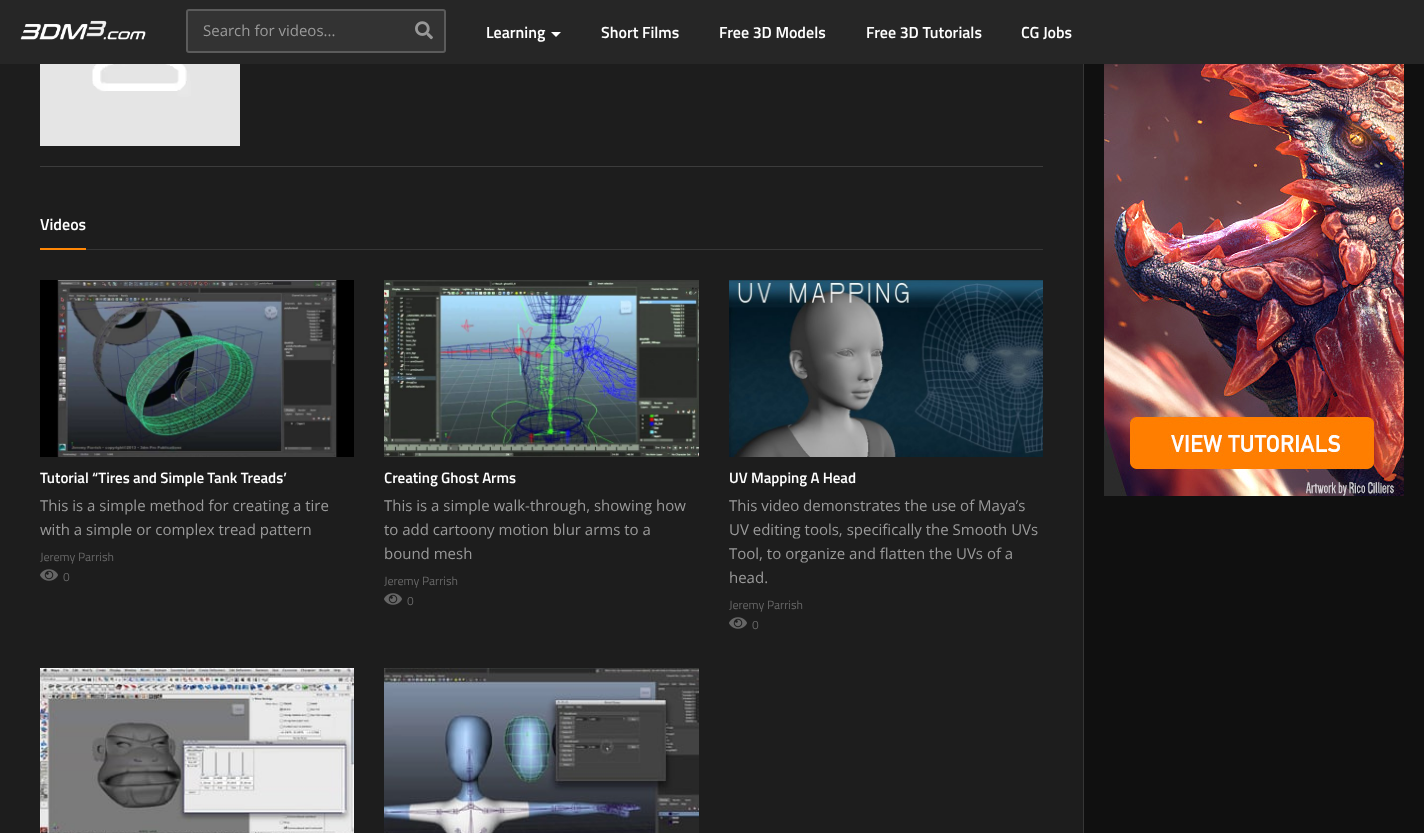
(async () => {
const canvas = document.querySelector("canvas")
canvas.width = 1424
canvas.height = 833
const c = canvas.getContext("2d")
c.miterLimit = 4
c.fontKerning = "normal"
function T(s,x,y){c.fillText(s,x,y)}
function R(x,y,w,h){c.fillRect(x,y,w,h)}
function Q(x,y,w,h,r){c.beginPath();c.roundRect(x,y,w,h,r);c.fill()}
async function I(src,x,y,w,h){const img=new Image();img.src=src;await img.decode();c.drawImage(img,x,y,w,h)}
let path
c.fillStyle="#101010"
R(0,0,1424,833)
c.fillStyle="#262626"
R(0,0,1424,64)
await I("1.png",20,20,126,20)
c.fillStyle="#333"
Q(186,9,260,44,3)
c.beginPath()
c.roundRect(187,10,258,42,2)
c.strokeStyle="#ffffff33"
c.lineWidth=2
c.stroke()
c.font="15px Open Sans"
c.fillStyle="#9a9a9a"
T("Search for videos...",203,36)
await I("2.png",415,21,18,19)
c.font="600 16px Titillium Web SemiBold"
c.fillStyle="#fff"
T("Learning",486,38)
path = new Path2D("M551 32h10l-5 5z")
c.fill(path)
T("Short Films",601,38)
T("Free 3D Models",719,38)
T("Free 3D Tutorials",866,38)
T("CG Jobs",1021,38)
c.fillStyle="#1d1d1d"
R(0,64,1083,769)
c.fillStyle="#363636"
R(1083,64,1,769)
await I("3.png",40,64,200,82)
c.fillStyle="#3c3c3c"
R(40,166,1003,1)
c.fillStyle="#363636"
R(86,249,957,1)
c.fillStyle="#fff"
T("Videos",40,230)
c.fillStyle="#ff8706"
R(40,248,46,2)
await I("4.png",40,280,314,177)
c.font="600 15px Titillium Web SemiBold"
c.fillStyle="#fff"
T("Tutorial “Tires and Simple Tank Treads’",40,483)
c.font="15px Open Sans"
c.fillStyle="#9a9a9a"
T("This is a simple method for creating a tire",40,511)
T("with a simple or complex tread pattern",40,535)
c.font="12px Titillium Web"
c.fillStyle="#666"
T("Jeremy Parrish",40,561)
await I("5.png",40,569,18,12)
T("0",63,581)
await I("6.png",384,280,315,177)
c.font="600 15px Titillium Web SemiBold"
c.fillStyle="#fff"
T("Creating Ghost Arms",384,483)
c.font="15px Open Sans"
c.fillStyle="#9a9a9a"
T("This is a simple walk-through, showing how",384,511)
T("to add cartoony motion blur arms to a",384,535)
T("bound mesh",384,559)
c.font="12px Titillium Web"
c.fillStyle="#666"
T("Jeremy Parrish",384,585)
await I("5.png",384,593,18,12)
T("0",407,605)
await I("7.png",729,280,314,177)
c.font="600 15px Titillium Web SemiBold"
c.fillStyle="#fff"
T("UV Mapping A Head",729,483)
c.font="15px Open Sans"
c.fillStyle="#9a9a9a"
T("This video demonstrates the use of Maya’s",729,511)
T("UV editing tools, specifically the Smooth UVs",729,535)
T("Tool, to organize and flatten the UVs of a",729,559)
T("head.",729,583)
c.font="12px Titillium Web"
c.fillStyle="#666"
T("Jeremy Parrish",729,609)
await I("5.png",729,617,18,12)
T("0",752,629)
await I("8.png",40,668,314,165)
await I("9.png",384,668,315,165)
await I("10.png",1104,64,300,432)
})()
